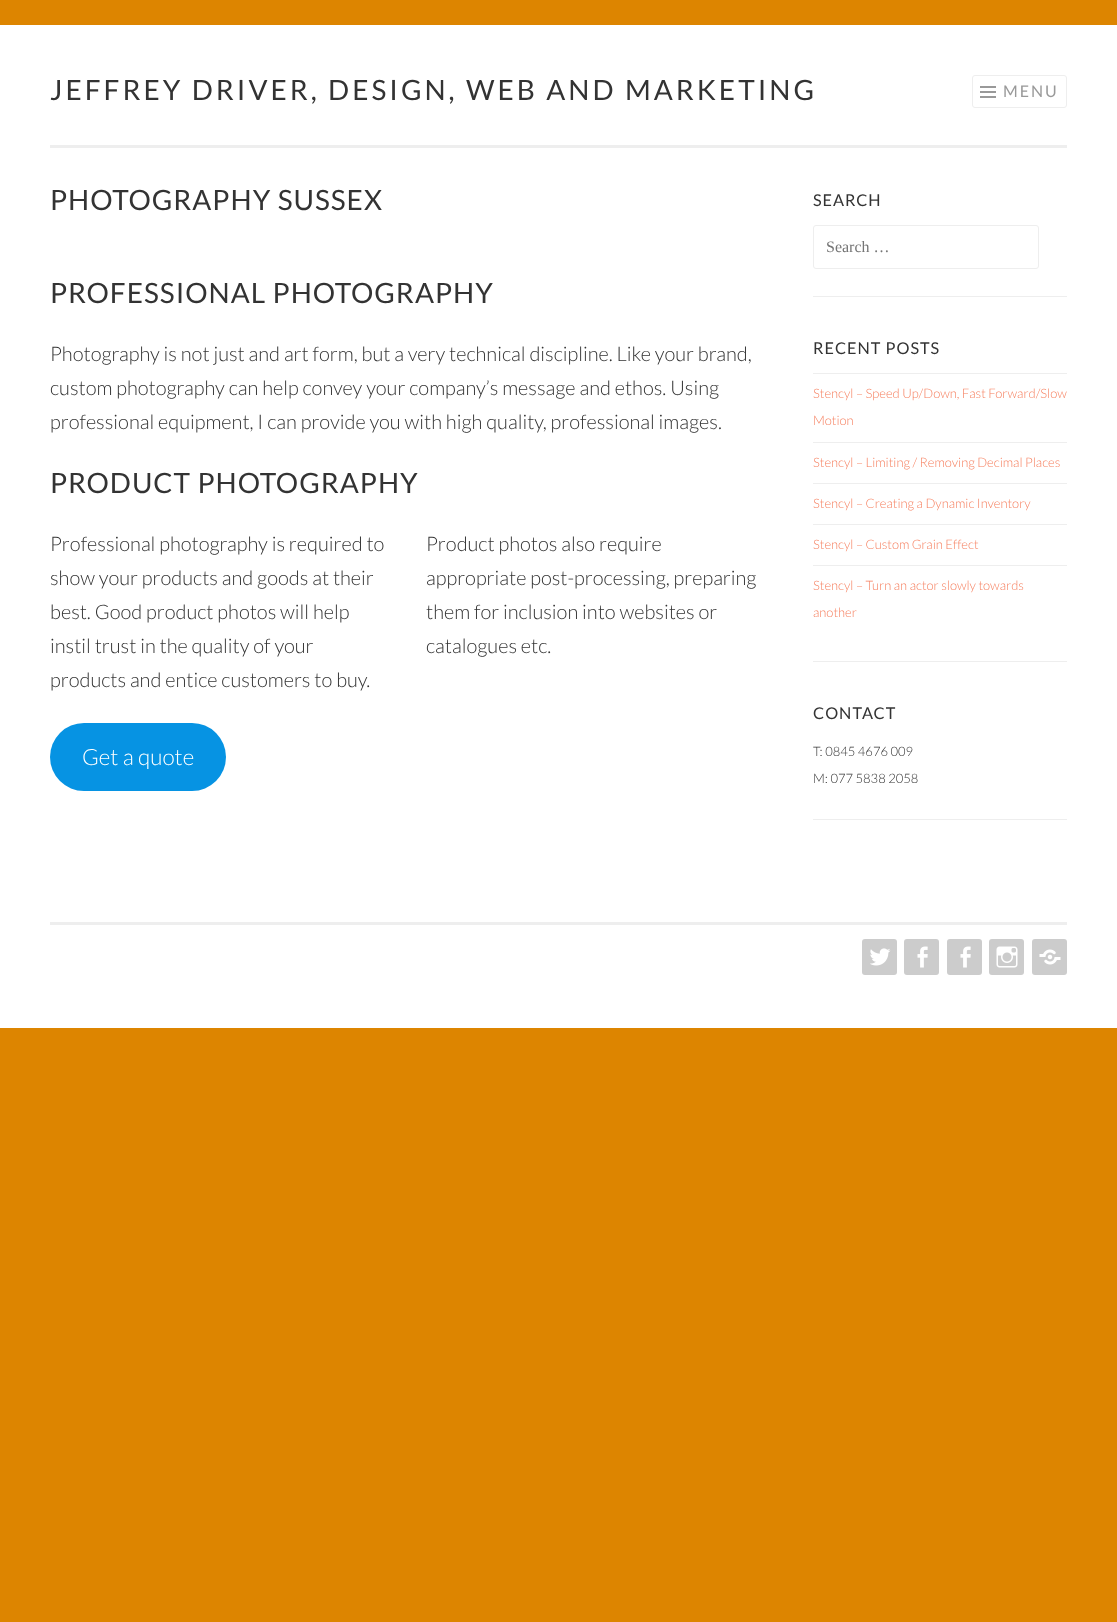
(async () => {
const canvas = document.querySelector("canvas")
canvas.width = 1117
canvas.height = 1622
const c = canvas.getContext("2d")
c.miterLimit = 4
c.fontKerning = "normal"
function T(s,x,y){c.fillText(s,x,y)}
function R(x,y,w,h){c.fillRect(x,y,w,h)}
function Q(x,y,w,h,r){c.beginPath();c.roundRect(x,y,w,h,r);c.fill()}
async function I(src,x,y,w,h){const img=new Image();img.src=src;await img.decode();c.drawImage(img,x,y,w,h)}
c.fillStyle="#dd8500"
R(0,0,1117,1622)
c.fillStyle="#fff"
R(0,25,1117,1003)
c.fillStyle="#eee"
R(50,145,1017,3)
c.letterSpacing="3px"
c.font="28px Lato"
c.fillStyle="#333"
T("JEFFREY DRIVER, DESIGN, WEB AND MARKETING",50,100)
c.beginPath()
c.roundRect(972.5,75.5,94,32,2.5)
c.strokeStyle="#eee"
c.stroke()
await I("1.png",980,86,16,12)
c.letterSpacing="2px"
c.font="16px Lato"
c.fillStyle="#999"
T("MENU",1003,97)
c.letterSpacing="1px"
c.font="28px Lato"
c.fillStyle="#333"
T("PHOTOGRAPHY SUSSEX",50,210)
T("PROFESSIONAL PHOTOGRAPHY",50,303)
c.letterSpacing="0px"
c.font="300 20px Lato"
T("Photography is not just and art form, but a very technical discipline. Like your brand,",50,361)
T("custom photography can help convey your company’s message and ethos. Using",50,395)
T("professional equipment, I can provide you with high quality, professional images.",50,429)
c.letterSpacing="1px"
c.font="28px Lato"
T("PRODUCT PHOTOGRAPHY",50,493)
c.letterSpacing="0px"
c.font="300 20px Lato"
T("Professional photography is required to",50,551)
T("show your products and goods at their",50,585)
T("best. Good product photos will help",50,619)
T("instil trust in the quality of your",50,653)
T("products and entice customers to buy.",50,687)
T("Product photos also require",426,551)
T("appropriate post-processing, preparing",426,585)
T("them for inclusion into websites or",426,619)
T("catalogues etc.",426,653)
c.fillStyle="#0693e3"
Q(50,723,176,68,34)
c.font="300 22.5px Lato"
c.fillStyle="#fff"
T("Get a quote",82,765)
c.fillStyle="#eee"
R(813,296,254,1)
c.letterSpacing="1px"
c.font="16.25px Lato"
c.fillStyle="#333"
T("SEARCH",813,206)
c.beginPath()
c.roundRect(813.5,225.5,225,43,2.5)
c.stroke()
c.letterSpacing="0px"
c.font="16px Liberation Serif"
c.fillStyle="#757575"
T("Search …",826,252)
c.fillStyle="#eee"
R(813,661,254,1)
c.letterSpacing="1px"
c.font="16.25px Lato"
c.fillStyle="#333"
T("RECENT POSTS",813,354)
c.fillStyle="#eee"
R(813,373,254,1)
c.letterSpacing="0px"
c.font="300 13px Lato"
c.fillStyle="#f68060"
T("Stencyl – Speed Up/Down, Fast Forward/Slow",813,398)
T("Motion",813,425)
c.fillStyle="#eee"
R(813,442,254,1)
c.fillStyle="#f68060"
T("Stencyl – Limiting / Removing Decimal Places",813,467)
c.fillStyle="#eee"
R(813,483,254,1)
c.fillStyle="#f68060"
T("Stencyl – Creating a Dynamic Inventory",813,508)
c.fillStyle="#eee"
R(813,524,254,1)
c.fillStyle="#f68060"
T("Stencyl – Custom Grain Effect",813,549)
c.fillStyle="#eee"
R(813,565,254,1)
c.fillStyle="#f68060"
T("Stencyl – Turn an actor slowly towards",813,590)
T("another",813,617)
c.fillStyle="#eee"
R(813,819,254,1)
c.letterSpacing="1px"
c.font="16.25px Lato"
c.fillStyle="#333"
T("CONTACT",813,719)
c.letterSpacing="0px"
c.font="300 13px Lato"
T("T: 0845 4676 009",813,756)
T("M: 077 5838 2058",813,783)
c.fillStyle="#eee"
R(50,922,1017,3)
c.fillStyle="#ccc"
Q(862,939,35,36,3)
await I("2.png",870,948,21,18)
Q(904,939,35,36,3)
await I("3.png",917,946,11,22)
Q(947,939,35,36,3)
await I("3.png",960,946,11,22)
Q(989,939,35,36,3)
await I("4.png",996,946,22,22)
Q(1032,939,35,36,3)
await I("5.png",1039,949,22,16)
})()
